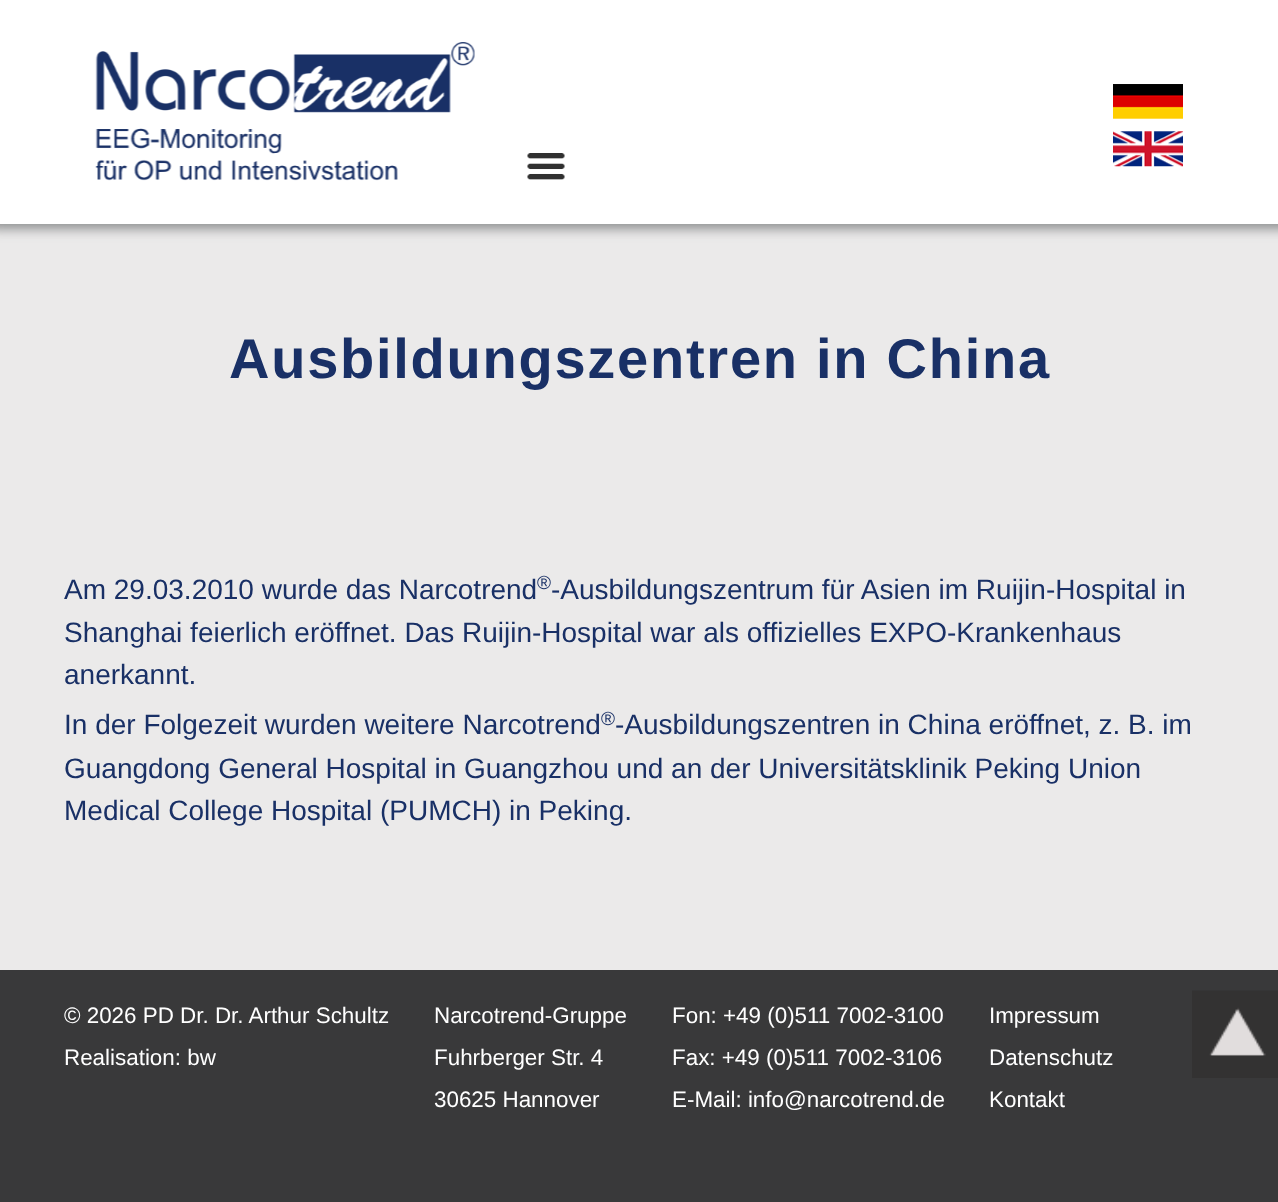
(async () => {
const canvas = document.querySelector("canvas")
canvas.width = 1278
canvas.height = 1202
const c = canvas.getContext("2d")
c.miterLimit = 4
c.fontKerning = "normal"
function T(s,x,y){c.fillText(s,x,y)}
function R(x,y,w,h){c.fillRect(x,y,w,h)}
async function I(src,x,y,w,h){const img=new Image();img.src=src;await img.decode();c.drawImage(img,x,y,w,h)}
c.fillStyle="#ebeaea"
R(0,0,1278,1202)
c.fillStyle="#797b7dcf"
c.filter="blur(6px)"
c.beginPath()
c.rect(-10,-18,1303,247)
c.fill()
c.filter="none"
c.fillStyle="#fff"
R(0,0,1278,224)
await I("1.png",95,42,380,139)
await I("2.png",527,153,38,27)
await I("3.png",1113,84,70,35)
await I("4.png",1113,131,70,36)
c.letterSpacing="1.75px"
c.font="bold 56px Liberation Sans"
c.fillStyle="#193066"
T("Ausbildungszentren in China",229,378)
c.letterSpacing="0px"
c.font="28px Liberation Sans"
T("Am 29.03.2010 wurde das Narcotrend",64,599)
c.font="19px Liberation Sans"
T("®",537,589)
c.font="28px Liberation Sans"
T("-Ausbildungszentrum für Asien im Ruijin-Hospital in",551,599)
T("Shanghai feierlich eröffnet. Das Ruijin-Hospital war als offizielles EXPO-Krankenhaus",64,642)
T("anerkannt.",64,684)
T("In der Folgezeit wurden weitere Narcotrend",64,734)
c.font="19px Liberation Sans"
T("®",601,725)
c.font="28px Liberation Sans"
T("-Ausbildungszentren in China eröffnet, z. B. im",615,734)
T("Guangdong General Hospital in Guangzhou und an der Universitätsklinik Peking Union",64,778)
T("Medical College Hospital (PUMCH) in Peking.",64,820)
c.fillStyle="#39393a"
R(0,970,1278,232)
c.font="22.4px Liberation Sans"
c.fillStyle="#fff"
T("© 2026 PD Dr. Dr. Arthur Schultz",64,1023)
T("Realisation: bw",64,1065)
T("Narcotrend-Gruppe",434,1023)
T("Fuhrberger Str. 4",434,1065)
T("30625 Hannover",434,1107)
T("Fon: +49 (0)511 7002-3100",672,1023)
T("Fax: +49 (0)511 7002-3106",672,1065)
T("E-Mail: info@narcotrend.de",672,1107)
T("Impressum",989,1023)
T("Datenschutz",989,1065)
T("Kontakt",989,1107)
await I("5.png",1192,990,86,88)
})()
